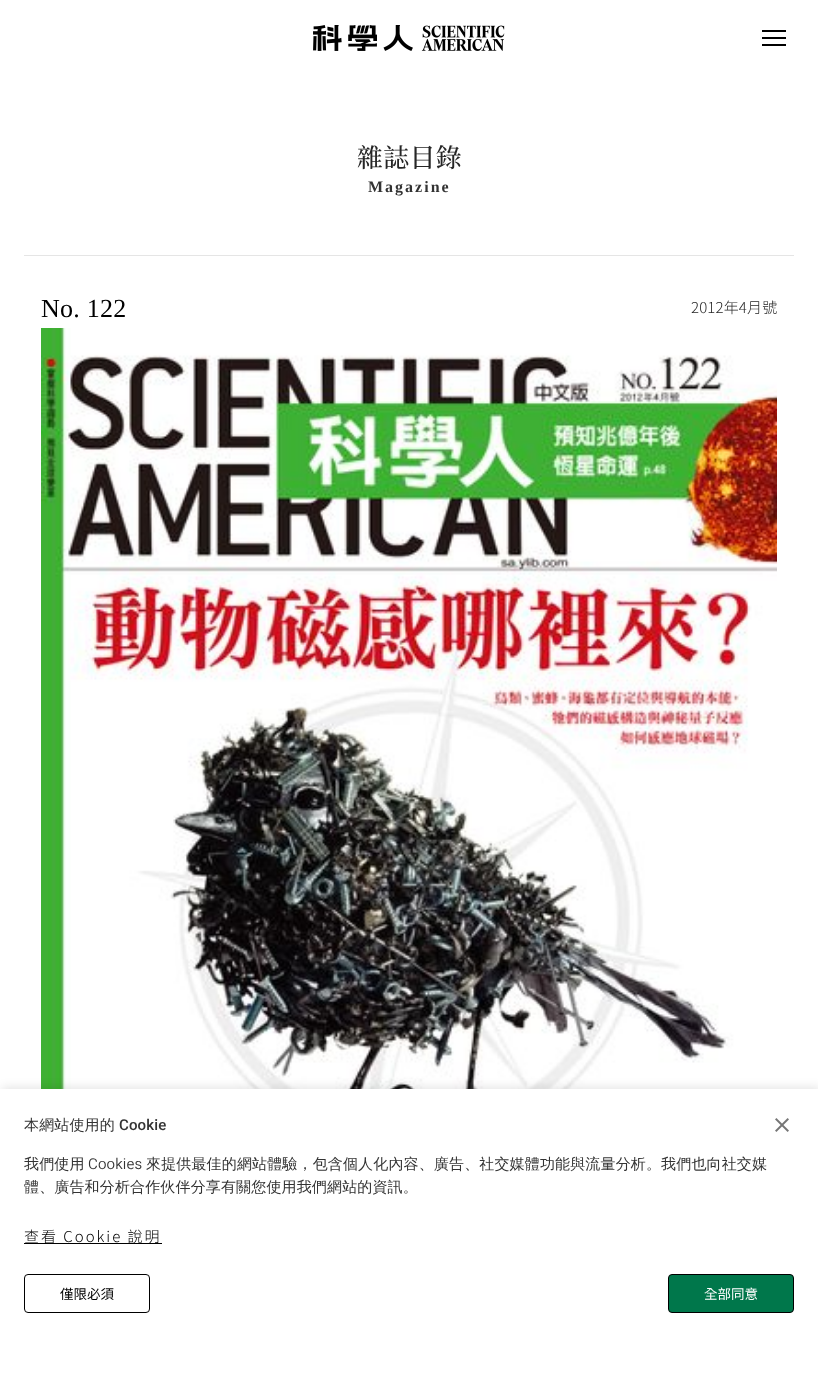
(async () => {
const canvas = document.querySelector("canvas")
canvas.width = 818
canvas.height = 1381
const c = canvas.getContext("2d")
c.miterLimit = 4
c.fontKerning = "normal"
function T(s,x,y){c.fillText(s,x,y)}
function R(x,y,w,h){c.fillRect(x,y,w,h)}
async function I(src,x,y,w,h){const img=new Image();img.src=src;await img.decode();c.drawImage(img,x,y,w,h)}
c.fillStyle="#fff"
R(0,0,818,1381)
await I("1.png",313,25,192,26)
await I("2.png",762,30,24,16)
c.fillStyle="#e5e5e5"
R(24,255,770,1)
c.letterSpacing="0.25px"
c.font="500 26px Noto Serif TC"
c.fillStyle="#262626"
T("雜誌目錄",357,167)
c.letterSpacing="2px"
c.font="bold 16px Liberation Serif"
c.fillStyle="#333"
T("Magazine",368,192)
c.letterSpacing="0.25px"
c.font="26px Liberation Serif"
c.fillStyle="#000"
T("No. 122",41,317)
c.letterSpacing="0.15px"
c.font="300 15px Noto Sans TC"
c.fillStyle="#262626"
T("2012年4月號",691,313)
await I("3.png",41,328,736,761)
c.fillStyle="#0000001a"
c.filter="blur(5px)"
c.beginPath()
c.rect(2,1087,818,292)
c.fill()
c.filter="none"
c.fillStyle="#fff"
R(0,1089,818,292)
c.font="500 15px WenQuanYi Zen Hei"
c.fillStyle="#333"
T("本網站使用的",24,1130)
c.font="500 15px Roboto"
T("Cookie",119,1130)
await I("4.png",775,1118,14,14)
c.font="500 15px WenQuanYi Zen Hei"
T("我們使用",24,1169)
c.font="300 15px Roboto"
T("Cookies",88,1169)
c.font="500 15px WenQuanYi Zen Hei"
T("來提供最佳的網站體驗，包含個人化內容、廣告、社交媒體功能與流量分析。我們也向社交媒",146,1169)
T("體、廣告和分析合作伙伴分享有關您使用我們網站的資訊。",24,1192)
c.fillStyle="#000"
R(24,1243,138,1)
c.letterSpacing="2px"
c.font="300 15px Noto Sans TC"
T("查看 Cookie 說明",24,1242)
c.beginPath()
c.roundRect(24.5,1274.5,125,38,3.5)
c.strokeStyle="#000"
c.stroke()
c.letterSpacing="0px"
c.font="13.5px Noto Sans TC"
T("僅限必須",60,1299)
c.fillStyle="#00774b"
c.beginPath()
c.roundRect(668.5,1274.5,125,38,3.5)
c.fill()
c.stroke()
c.fillStyle="#fff"
T("全部同意",704,1299)
})()
